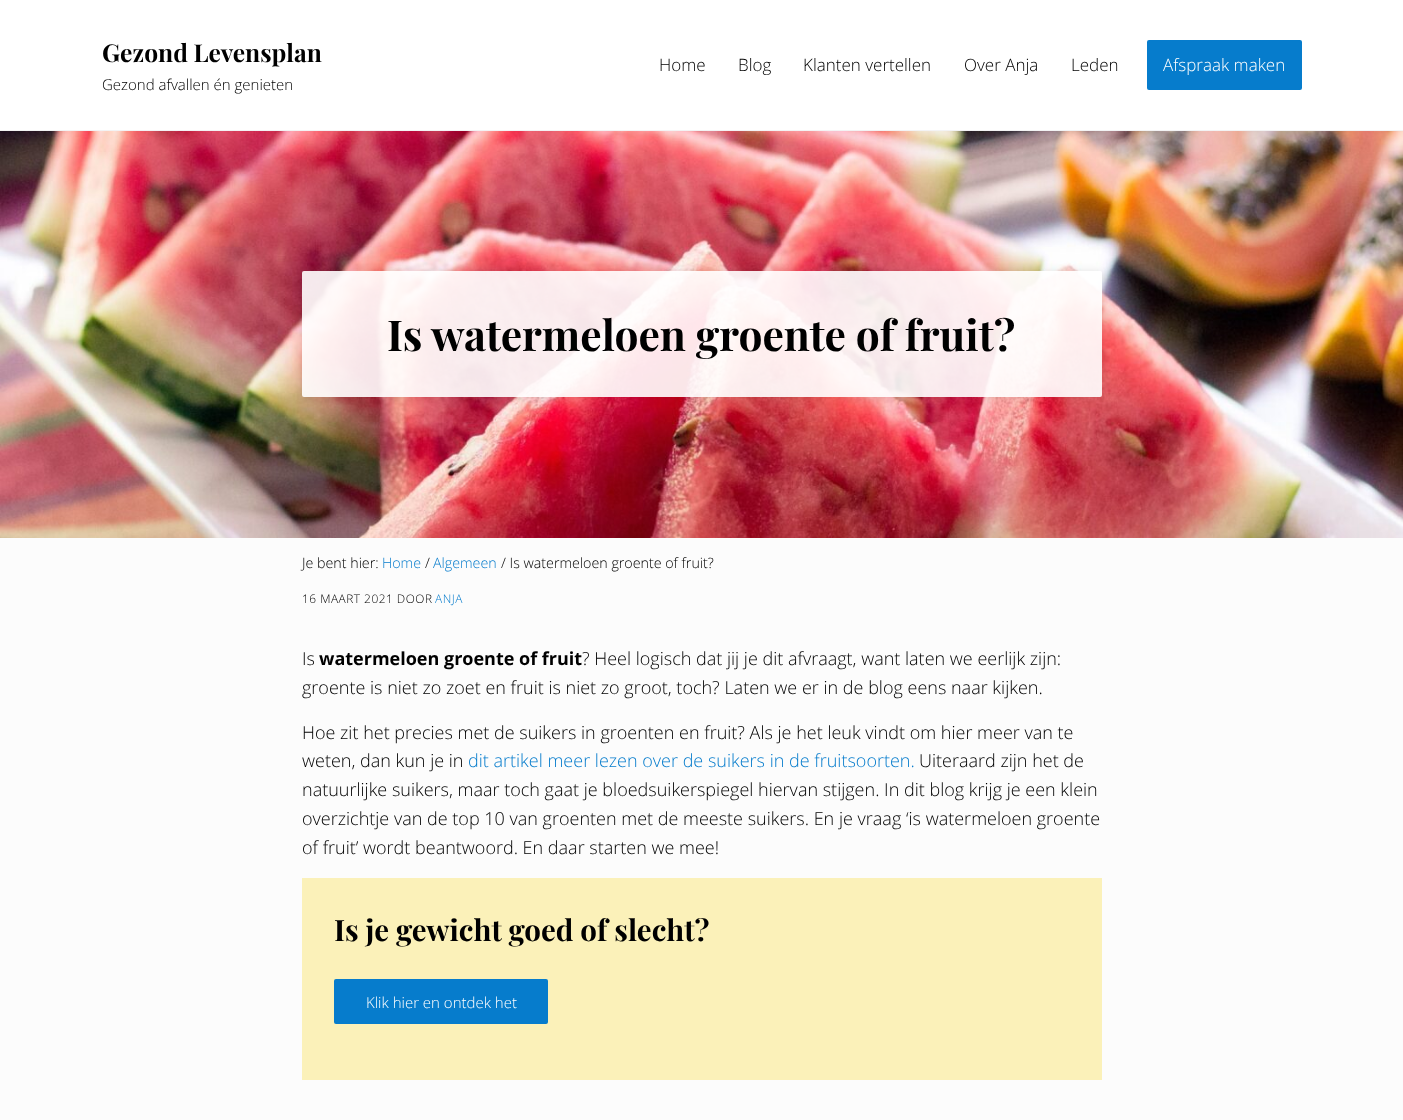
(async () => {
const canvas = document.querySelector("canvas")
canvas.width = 1403
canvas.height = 1120
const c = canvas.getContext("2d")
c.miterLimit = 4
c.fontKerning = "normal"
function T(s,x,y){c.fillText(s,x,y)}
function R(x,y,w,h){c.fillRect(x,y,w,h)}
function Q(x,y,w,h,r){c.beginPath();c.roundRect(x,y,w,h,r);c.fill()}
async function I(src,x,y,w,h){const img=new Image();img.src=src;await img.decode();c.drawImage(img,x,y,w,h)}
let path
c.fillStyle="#fcfcfc"
R(0,0,1403,1120)
c.fillStyle="#fff"
R(0,0,1403,130)
c.fillStyle="#f3f3f4"
R(0,130,1403,1)
c.font="bold 24.6px Playfair Display"
c.fillStyle="#000"
T("Gezond Levensplan",102,62)
c.font="300 15px Open Sans"
T("Gezond afvallen én genieten",102,90)
c.font="300 17px Open Sans"
T("Home",659,71)
T("Blog",738,71)
T("Klanten vertellen",803,71)
T("Over Anja",964,71)
T("Leden",1071,71)
c.fillStyle="#067ccc"
Q(1147,40,155,50,2)
c.fillStyle="#fff"
T("Afspraak maken",1163,71)
await I("1.png",0,131,1403,407)
c.save()
path = new Path2D("M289 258h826v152h-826zm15 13h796c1 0 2 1 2 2v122c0 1-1 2-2 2h-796c-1 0-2-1-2-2v-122c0-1 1-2 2-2z")
c.clip(path,"evenodd")
c.fillStyle="#0000001a"
c.filter="blur(4px)"
c.beginPath()
c.roundRect(302,271,800,126,2)
c.fill()
c.filter="none"
c.restore()
c.fillStyle="#ffffffe6"
Q(302,271,800,126,2)
c.font="bold 42.5px Playfair Display"
c.fillStyle="#000"
T("Is watermeloen groente of fruit?",387,351)
c.font="300 14.25px Open Sans"
T("Je bent hier:",302,568)
c.fillStyle="#067ccc"
T("Home",382,568)
c.fillStyle="#000"
T("/",425,568)
c.fillStyle="#067ccc"
T("Algemeen",433,568)
c.fillStyle="#000"
T("/ Is watermeloen groente of fruit?",501,568)
c.letterSpacing="0.5px"
c.font="300 11.9px Open Sans"
T("16 MAART 2021 DOOR",302,603)
c.fillStyle="#067ccc"
T("ANJA",435,603)
c.letterSpacing="0px"
c.font="300 18px Open Sans"
c.fillStyle="#000"
T("Is",302,665)
c.font="bold 18px Open Sans"
T("watermeloen groente of fruit",319,665)
c.font="300 18px Open Sans"
T("? Heel logisch dat jij je dit afvraagt, want laten we eerlijk zijn:",582,665)
T("groente is niet zo zoet en fruit is niet zo groot, toch? Laten we er in de blog eens naar kijken.",302,694)
T("Hoe zit het precies met de suikers in groenten en fruit? Als je het leuk vindt om hier meer van te",302,739)
T("weten, dan kun je in",302,767)
c.fillStyle="#067ccc"
T("dit artikel meer lezen over de suikers in de fruitsoorten.",468,767)
c.fillStyle="#000"
T("Uiteraard zijn het de",919,767)
T("natuurlijke suikers, maar toch gaat je bloedsuikerspiegel hiervan stijgen. In dit blog krijg je een klein",302,796)
T("overzichtje van de top 10 van groenten met de meeste suikers. En je vraag ‘is watermeloen groente",302,825)
T("of fruit’ wordt beantwoord. En daar starten we mee!",302,854)
c.fillStyle="#fbf1b9"
R(302,878,800,202)
c.font="bold 29.5px Playfair Display"
c.fillStyle="#000"
T("Is je gewicht goed of slecht?",334,941)
c.fillStyle="#067ccc"
Q(334,979,214,45,2)
c.font="300 15px Open Sans"
c.fillStyle="#fff"
T("Klik hier en ontdek het",366,1008)
})()
